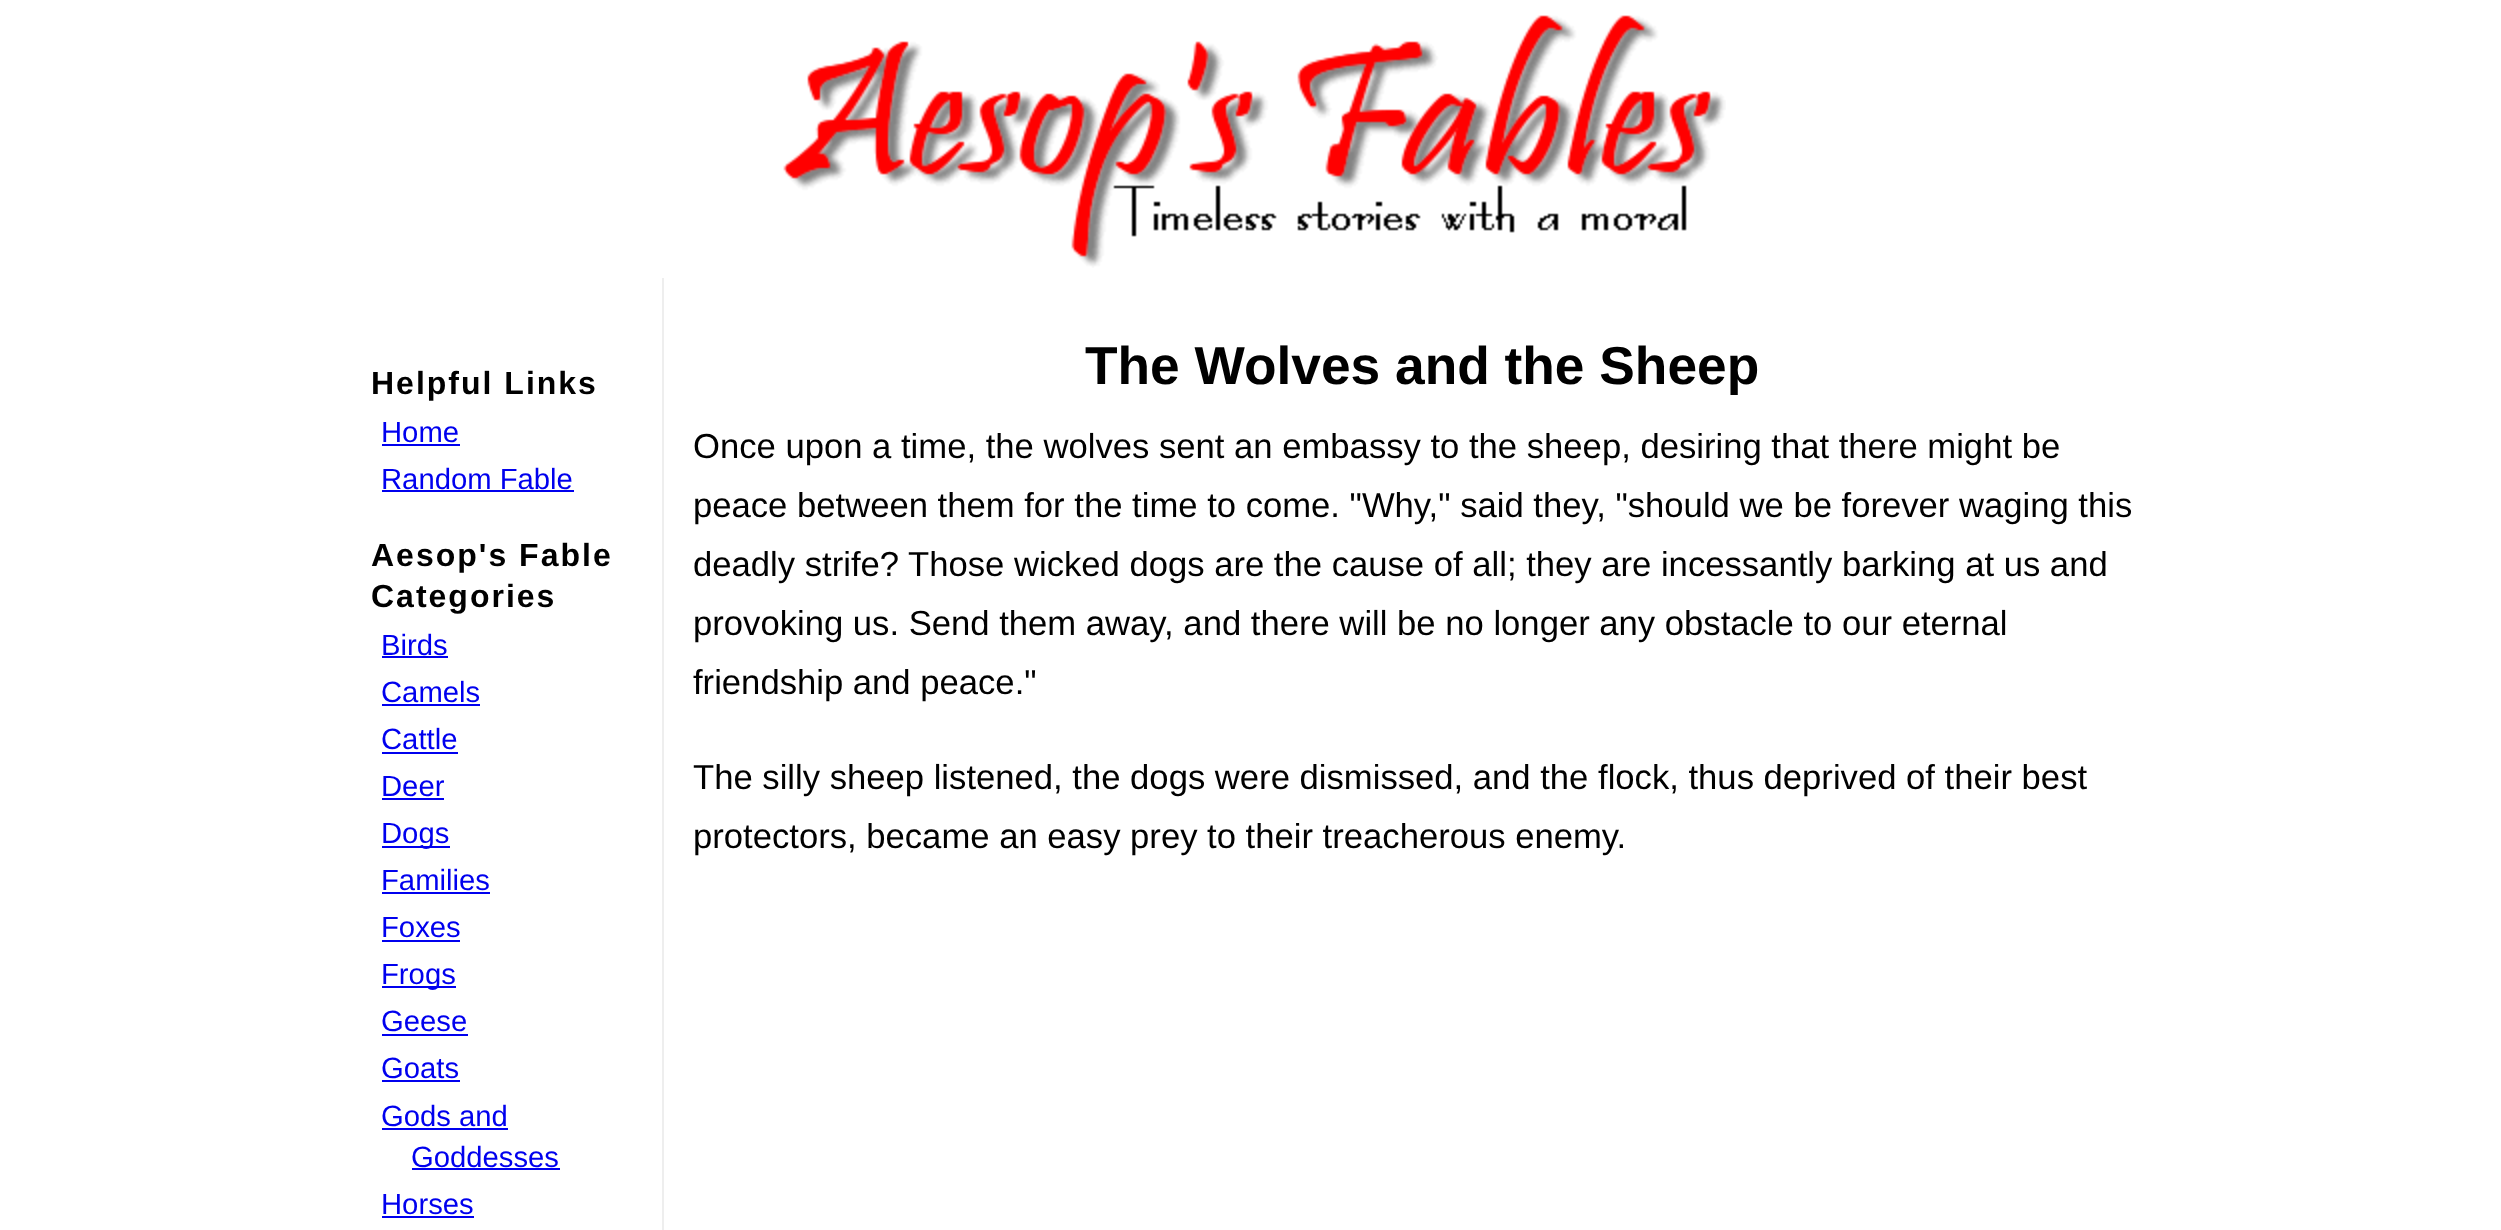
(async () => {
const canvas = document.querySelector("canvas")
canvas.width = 2501
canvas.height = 1230
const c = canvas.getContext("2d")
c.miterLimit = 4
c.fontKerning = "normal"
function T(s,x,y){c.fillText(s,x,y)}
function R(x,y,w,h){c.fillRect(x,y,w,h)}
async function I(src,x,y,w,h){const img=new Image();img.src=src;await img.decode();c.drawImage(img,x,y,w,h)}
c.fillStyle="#fff"
R(0,0,2501,1230)
await I("1.png",783,15,943,253)
c.fillStyle="#eee"
R(662,278,2,952)
c.letterSpacing="2px"
c.font="bold 32px Liberation Sans"
c.fillStyle="#000"
T("Helpful Links",371,394)
c.letterSpacing="0px"
c.font="29.25px Liberation Sans"
c.fillStyle="#00e"
T("Home",381,442)
R(382,444,78,2)
T("Random Fable",381,489)
R(382,490,192,2)
c.letterSpacing="2px"
c.font="bold 32px Liberation Sans"
c.fillStyle="#000"
T("Aesop's Fable",371,566)
T("Categories",371,607)
c.letterSpacing="0px"
c.font="29.25px Liberation Sans"
c.fillStyle="#00e"
T("Birds",381,655)
R(382,656,66,2)
T("Camels",381,702)
R(382,704,98,2)
T("Cattle",381,749)
R(382,752,76,2)
T("Deer",381,796)
R(382,798,62,2)
R(382,846,68,2)
T("Dogs",381,843)
T("Families",381,890)
R(382,892,108,2)
T("Foxes",381,937)
R(382,940,78,2)
R(382,986,74,2)
T("Frogs",381,984)
T("Geese",381,1031)
R(382,1034,86,2)
T("Goats",381,1078)
R(382,1080,78,2)
T("Gods and",381,1126)
R(382,1128,126,2)
T("Goddesses",411,1167)
R(412,1168,148,2)
T("Horses",381,1214)
R(382,1216,92,2)
c.font="bold 53.3px Liberation Sans"
c.fillStyle="#000"
T("The Wolves and the Sheep",1085,384)
c.font="34.65px Liberation Sans"
T("Once upon a time, the wolves sent an embassy to the sheep, desiring that there might be",693,458)
T("peace between them for the time to come. \"Why,\" said they, \"should we be forever waging this",693,517)
T("deadly strife? Those wicked dogs are the cause of all; they are incessantly barking at us and",693,576)
T("provoking us. Send them away, and there will be no longer any obstacle to our eternal",693,635)
T("friendship and peace.\"",693,694)
T("The silly sheep listened, the dogs were dismissed, and the flock, thus deprived of their best",693,789)
T("protectors, became an easy prey to their treacherous enemy.",693,848)
})()
